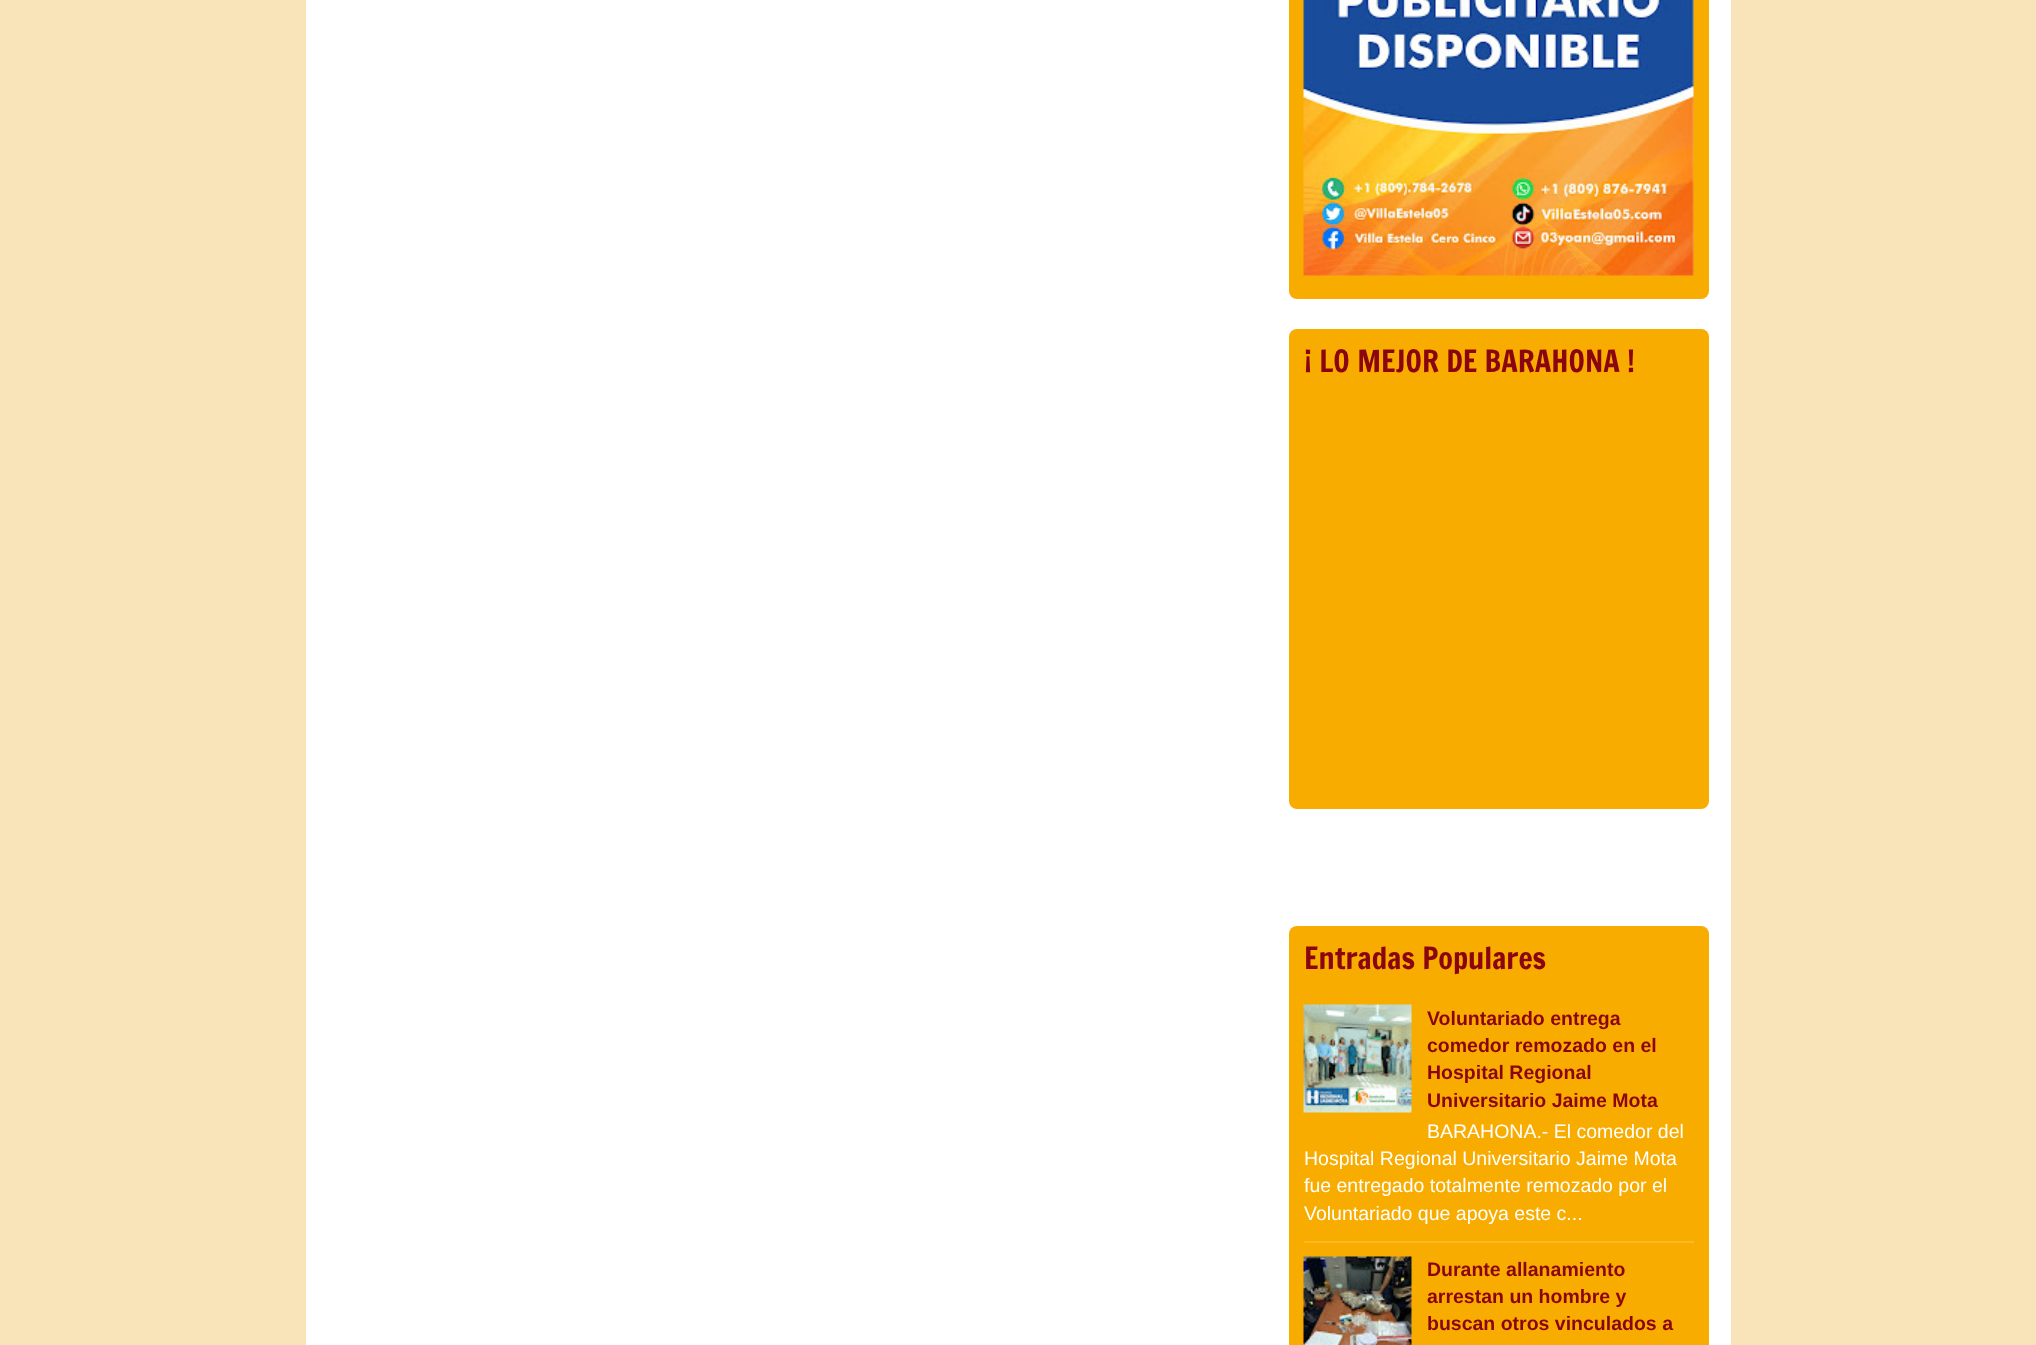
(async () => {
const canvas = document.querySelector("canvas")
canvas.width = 2036
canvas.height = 1345
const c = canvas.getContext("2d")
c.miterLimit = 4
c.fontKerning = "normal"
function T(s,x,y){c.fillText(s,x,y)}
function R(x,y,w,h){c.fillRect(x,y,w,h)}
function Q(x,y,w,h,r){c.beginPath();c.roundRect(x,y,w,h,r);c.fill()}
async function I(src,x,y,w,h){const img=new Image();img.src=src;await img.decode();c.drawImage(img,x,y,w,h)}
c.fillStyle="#f8e4b8"
R(0,0,2036,1345)
c.fillStyle="#fff"
R(306,0,1425,1345)
c.fillStyle="#f8ac00"
Q(1289,-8,420,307,8)
await I("1.png",1303,0,391,276)
Q(1289,329,420,480,8)
c.font="30px Francois One"
c.fillStyle="#8a050f"
T("¡ LO MEJOR DE BARAHONA !",1304,372)
c.fillStyle="#f8ac00"
Q(1289,926,420,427,8)
c.fillStyle="#8a050f"
T("Entradas Populares",1304,969)
c.fillStyle="#fcba20"
R(1304,1241,390,2)
await I("2.png",1303,1004,109,109)
c.font="bold 19.5px Liberation Sans"
c.fillStyle="#8a050f"
T("Voluntariado entrega",1427,1025)
T("comedor remozado en el",1427,1052)
T("Hospital Regional",1427,1079)
T("Universitario Jaime Mota",1427,1107)
c.font="19.5px Liberation Sans"
c.fillStyle="#fff"
T("BARAHONA.- El comedor del",1427,1138)
T("Hospital Regional Universitario Jaime Mota",1304,1165)
T("fue entregado totalmente remozado por el",1304,1192)
T("Voluntariado que apoya este c...",1304,1220)
await I("3.png",1303,1256,109,89)
c.font="bold 19.5px Liberation Sans"
c.fillStyle="#8a050f"
T("Durante allanamiento",1427,1276)
T("arrestan un hombre y",1427,1303)
T("buscan otros vinculados a",1427,1330)
})()
